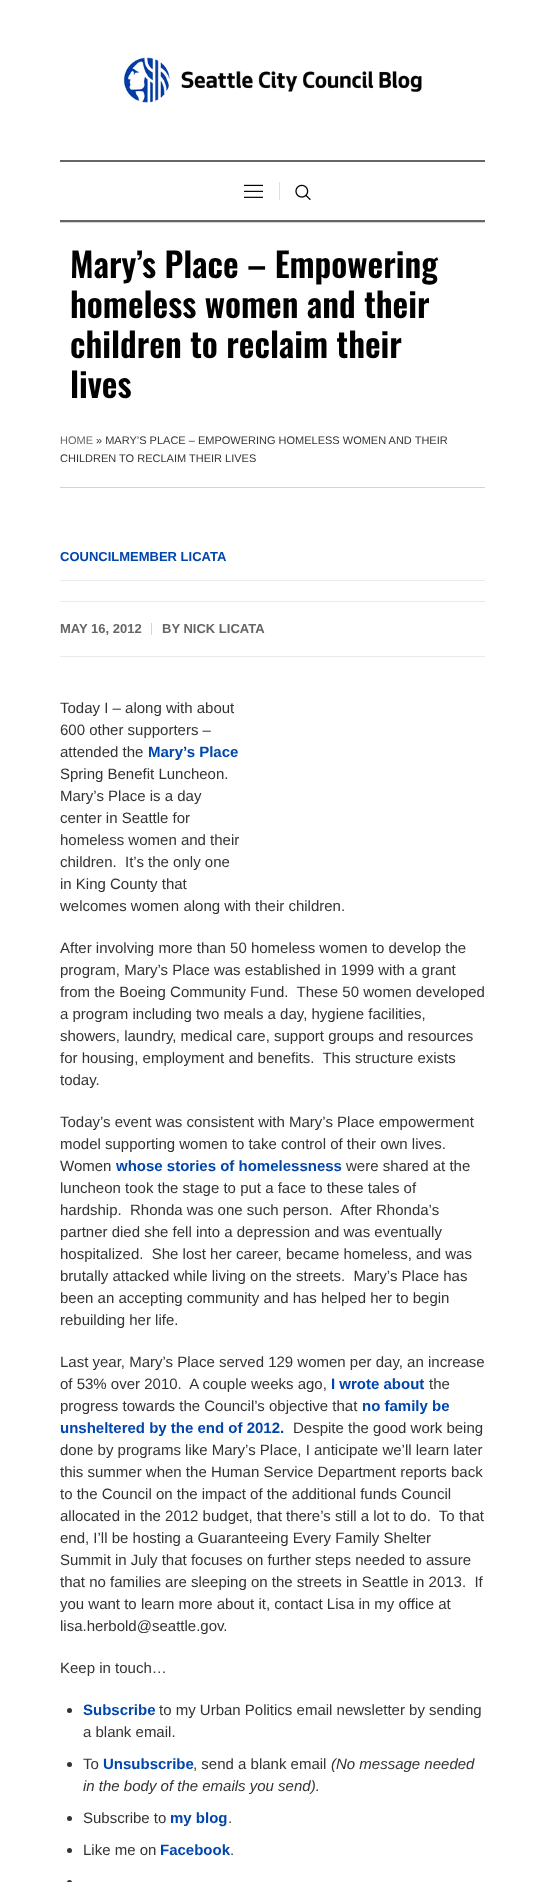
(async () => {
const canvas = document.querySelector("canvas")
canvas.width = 545
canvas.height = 1882
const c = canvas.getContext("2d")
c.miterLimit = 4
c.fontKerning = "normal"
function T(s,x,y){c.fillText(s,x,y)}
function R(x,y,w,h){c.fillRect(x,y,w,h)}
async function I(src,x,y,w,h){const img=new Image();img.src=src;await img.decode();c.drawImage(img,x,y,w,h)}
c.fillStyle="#fff"
R(0,0,545,1882)
await I("1.png",123,57,299,46)
c.fillStyle="#666"
R(60,160,425,2)
R(60,220,425,2)
await I("2.png",244,184,19,14)
c.fillStyle="#dfdfdf"
R(279,182,1,18)
await I("3.png",295,184,16,16)
c.fillStyle="#d4d4d4"
R(60,222,425,1)
R(60,487,425,1)
c.font="600 34px Oswald"
c.fillStyle="#000"
T("Mary’s Place – Empowering",70,278)
T("homeless women and their",70,318)
T("children to reclaim their",70,358)
T("lives",70,398)
c.font="11px Liberation Sans"
c.fillStyle="#666"
T("HOME",60,444)
c.fillStyle="#333"
T("» MARY’S PLACE – EMPOWERING HOMELESS WOMEN AND THEIR",96,444)
T("CHILDREN TO RECLAIM THEIR LIVES",60,462)
c.fillStyle="#eaeaea"
R(60,580,425,1)
c.font="bold 13px Liberation Sans"
c.fillStyle="#0046ad"
T("COUNCILMEMBER LICATA",60,561)
c.fillStyle="#eaeaea"
R(60,601,425,1)
R(60,656,425,1)
c.fillStyle="#666"
T("MAY 16, 2012",60,633)
c.fillStyle="#d4d4d4"
R(151,623,1,12)
c.fillStyle="#666"
T("BY NICK LICATA",162,633)
c.font="15px Liberation Sans"
c.fillStyle="#333"
T("Today I – along with about",60,713)
T("600 other supporters –",60,735)
T("attended the",60,757)
c.font="bold 15px Liberation Sans"
c.fillStyle="#0046ad"
T("Mary’s Place",148,757)
c.font="15px Liberation Sans"
c.fillStyle="#333"
T("Spring Benefit Luncheon.",60,779)
T("Mary’s Place is a day",60,801)
T("center in Seattle for",60,823)
T("homeless women and their",60,845)
T("children.  It’s the only one",60,867)
T("in King County that",60,889)
T("welcomes women along with their children.",60,911)
T("After involving more than 50 homeless women to develop the",60,953)
T("program, Mary’s Place was established in 1999 with a grant",60,975)
T("from the Boeing Community Fund.  These 50 women developed",60,997)
T("a program including two meals a day, hygiene facilities,",60,1019)
T("showers, laundry, medical care, support groups and resources",60,1041)
T("for housing, employment and benefits.  This structure exists",60,1063)
T("today.",60,1085)
T("Today’s event was consistent with Mary’s Place empowerment",60,1127)
T("model supporting women to take control of their own lives.",60,1149)
T("Women",60,1171)
c.font="bold 15px Liberation Sans"
c.fillStyle="#0046ad"
T("whose stories of homelessness",116,1171)
c.font="15px Liberation Sans"
c.fillStyle="#333"
T("were shared at the",346,1171)
T("luncheon took the stage to put a face to these tales of",60,1193)
T("hardship.  Rhonda was one such person.  After Rhonda’s",60,1215)
T("partner died she fell into a depression and was eventually",60,1237)
T("hospitalized.  She lost her career, became homeless, and was",60,1259)
T("brutally attacked while living on the streets.  Mary’s Place has",60,1281)
T("been an accepting community and has helped her to begin",60,1303)
T("rebuilding her life.",60,1325)
T("Last year, Mary’s Place served 129 women per day, an increase",60,1367)
T("of 53% over 2010.  A couple weeks ago,",60,1389)
c.font="bold 15px Liberation Sans"
c.fillStyle="#0046ad"
T("I wrote about",331,1389)
c.font="15px Liberation Sans"
c.fillStyle="#333"
T("the",429,1389)
T("progress towards the Council’s objective that",60,1411)
c.font="bold 15px Liberation Sans"
c.fillStyle="#0046ad"
T("no family be",362,1411)
T("unsheltered by the end of 2012.",60,1433)
c.font="15px Liberation Sans"
c.fillStyle="#333"
T("Despite the good work being",293,1433)
T("done by programs like Mary’s Place, I anticipate we’ll learn later",60,1455)
T("this summer when the Human Service Department reports back",60,1477)
T("to the Council on the impact of the additional funds Council",60,1499)
T("allocated in the 2012 budget, that there’s still a lot to do.  To that",60,1521)
T("end, I’ll be hosting a Guaranteeing Every Family Shelter",60,1543)
T("Summit in July that focuses on further steps needed to assure",60,1565)
T("that no families are sleeping on the streets in Seattle in 2013.  If",60,1587)
T("you want to learn more about it, contact Lisa in my office at",60,1609)
T("lisa.herbold@seattle.gov.",60,1631)
T("Keep in touch…",60,1673)
c.beginPath()
c.arc(69.5,1710.5,2.5,0,7)
c.fill()
c.font="bold 15px Liberation Sans"
c.fillStyle="#0046ad"
T("Subscribe",83,1715)
c.font="15px Liberation Sans"
c.fillStyle="#333"
T("to my Urban Politics email newsletter by sending",159,1715)
T("a blank email.",83,1737)
c.beginPath()
c.arc(69.5,1764.5,2.5,0,7)
c.fill()
T("To",83,1769)
c.font="bold 15px Liberation Sans"
c.fillStyle="#0046ad"
T("Unsubscribe",103,1769)
c.font="15px Liberation Sans"
c.fillStyle="#333"
T(", send a blank email",193,1769)
c.font="italic 15px Liberation Sans"
T("(No message needed",331,1769)
T("in the body of the emails you send).",83,1791)
c.beginPath()
c.arc(69.5,1818.5,2.5,0,7)
c.fill()
c.font="15px Liberation Sans"
T("Subscribe to",83,1823)
c.font="bold 15px Liberation Sans"
c.fillStyle="#0046ad"
T("my blog",170,1823)
c.font="15px Liberation Sans"
c.fillStyle="#333"
T(".",228,1823)
c.beginPath()
c.arc(69.5,1850.5,2.5,0,7)
c.fill()
T("Like me on",83,1855)
c.font="bold 15px Liberation Sans"
c.fillStyle="#0046ad"
T("Facebook",160,1855)
c.font="15px Liberation Sans"
c.fillStyle="#333"
T(".",230,1855)
c.beginPath()
c.arc(69.5,1882.5,2.5,0,7)
c.fill()
})()
